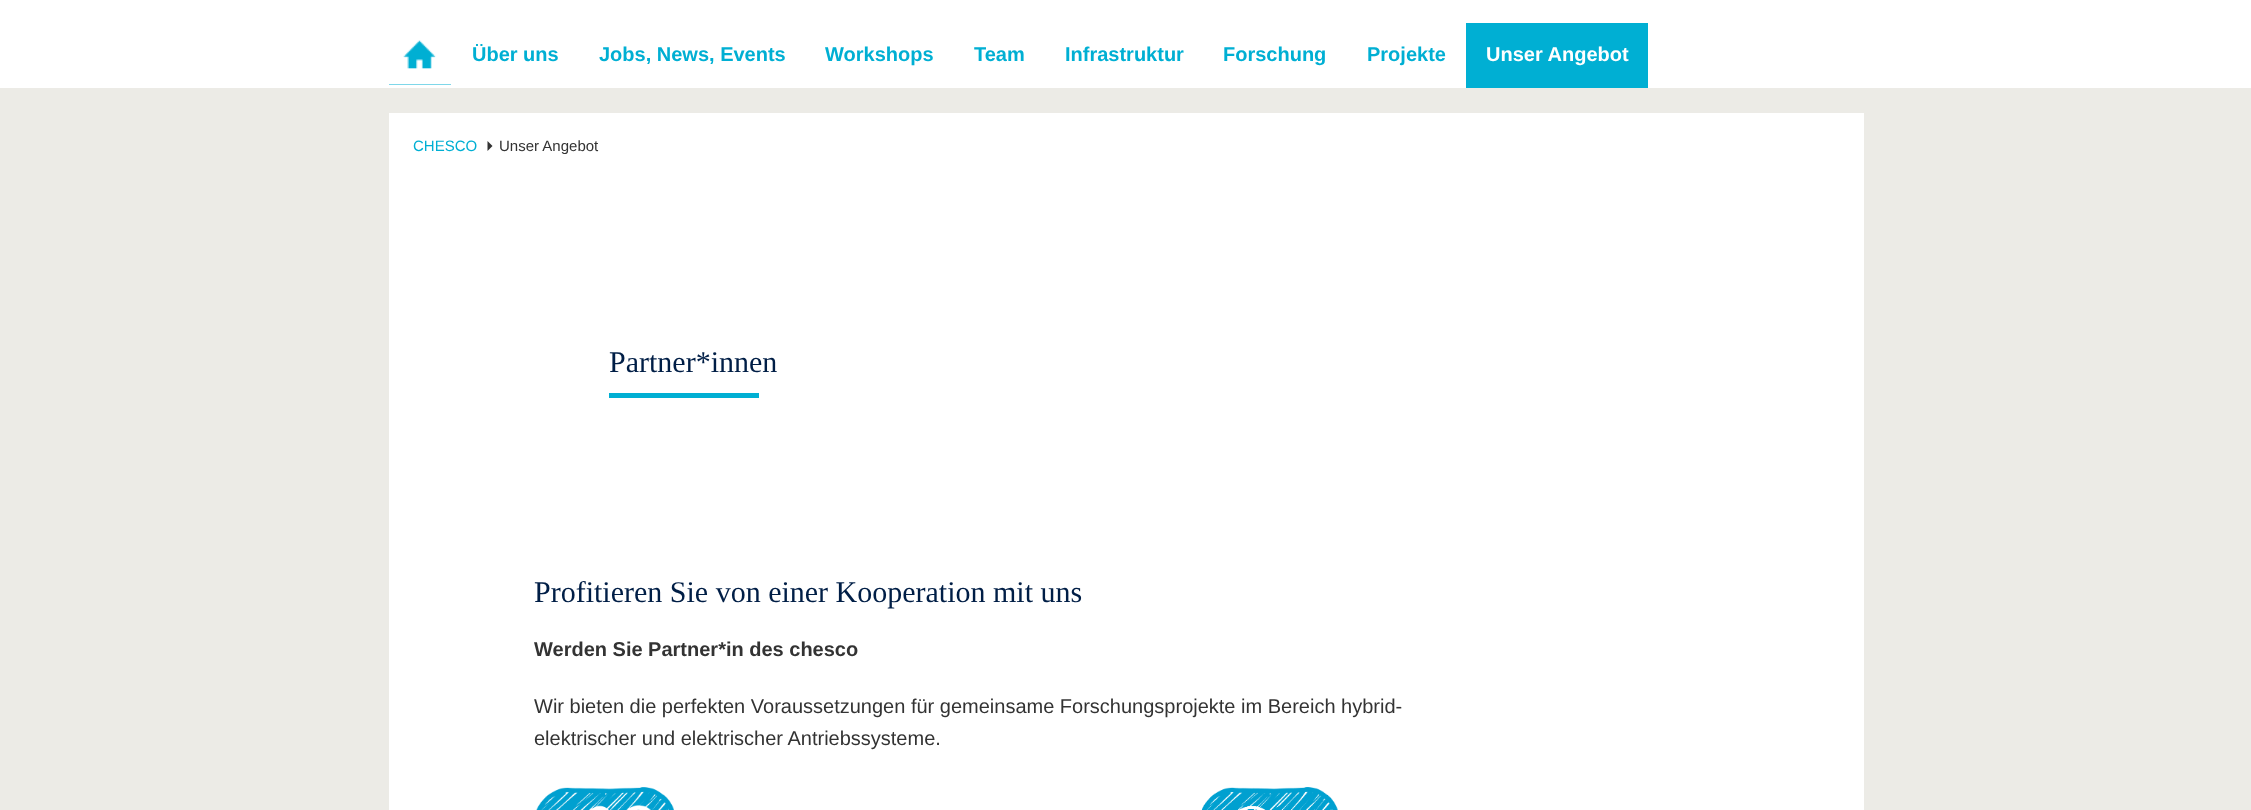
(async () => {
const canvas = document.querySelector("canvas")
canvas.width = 2251
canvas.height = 810
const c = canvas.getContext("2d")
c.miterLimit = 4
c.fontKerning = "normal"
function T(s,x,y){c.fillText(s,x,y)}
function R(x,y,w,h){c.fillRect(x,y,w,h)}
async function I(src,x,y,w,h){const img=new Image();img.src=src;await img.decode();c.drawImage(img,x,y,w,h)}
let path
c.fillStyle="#fff"
R(0,0,2251,810)
c.fillStyle="#00afd3"
R(389,40,62,45)
await I("1.png",389,23,62,62)
c.font="bold 20px Liberation Sans"
T("Über uns",472,61)
T("Jobs, News, Events",599,61)
T("Workshops",825,61)
T("Team",974,61)
T("Infrastruktur",1065,61)
T("Forschung",1223,61)
T("Projekte",1367,61)
R(1466,23,182,65)
c.fillStyle="#fff"
T("Unser Angebot",1486,61)
c.fillStyle="#ecebe6"
R(0,88,2251,722)
c.fillStyle="#fff"
R(389,113,1475,697)
c.font="15px Liberation Sans"
c.fillStyle="#00afd3"
T("CHESCO",413,151)
c.fillStyle="#333"
path = new Path2D("M487.5 151v-10l5 5z")
c.fill(path)
T("Unser Angebot",499,151)
c.font="30px Liberation Serif"
c.fillStyle="#001e46"
T("Partner*innen",609,372)
c.fillStyle="#00afd3"
R(609,393,150,5)
c.fillStyle="#001e46"
T("Profitieren Sie von einer Kooperation mit uns",534,602)
c.font="bold 20px Liberation Sans"
c.fillStyle="#333"
T("Werden Sie Partner*in des chesco",534,656)
c.font="20px Liberation Sans"
T("Wir bieten die perfekten Voraussetzungen für gemeinsame Forschungsprojekte im Bereich hybrid-",534,713)
T("elektrischer und elektrischer Antriebssysteme.",534,745)
await I("2.png",536,787,138,23)
await I("3.png",1201,787,137,23)
})()
